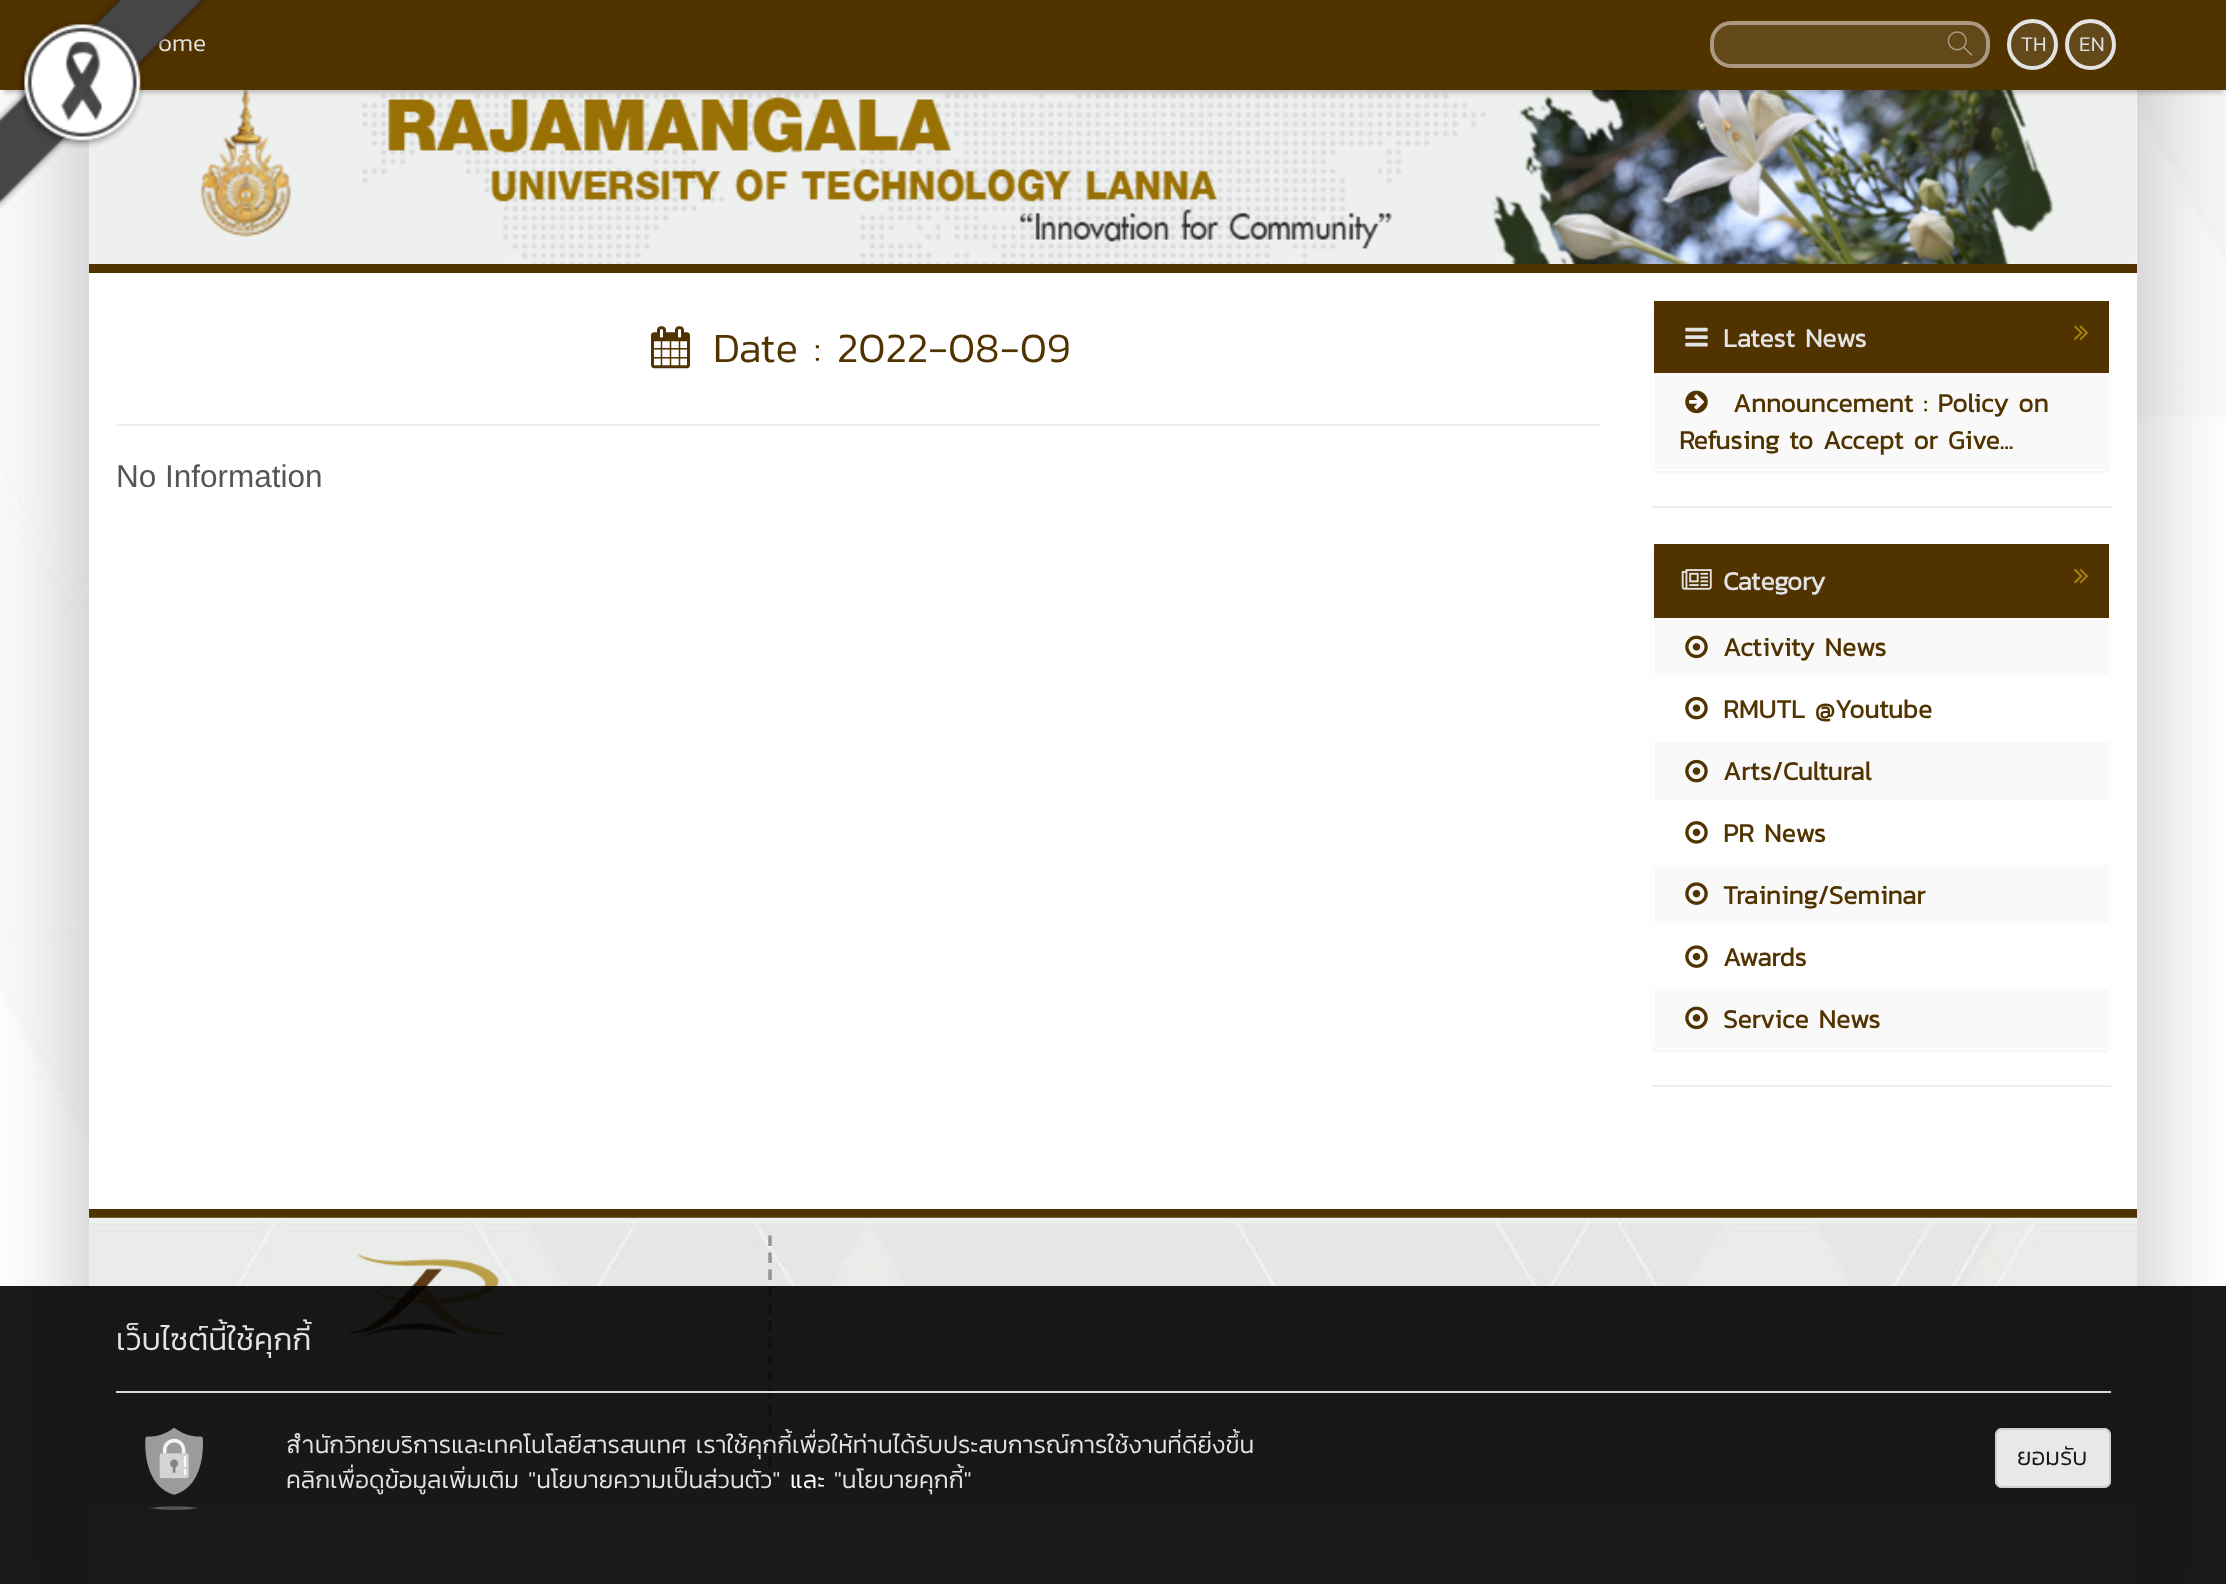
(async () => {
const canvas = document.querySelector("canvas")
canvas.width = 2226
canvas.height = 1584
const c = canvas.getContext("2d")
c.miterLimit = 4
c.fontKerning = "normal"
function T(s,x,y){c.fillText(s,x,y)}
function R(x,y,w,h){c.fillRect(x,y,w,h)}
function Q(x,y,w,h,r){c.beginPath();c.roundRect(x,y,w,h,r);c.fill()}
async function I(src,x,y,w,h){const img=new Image();img.src=src;await img.decode();c.drawImage(img,x,y,w,h)}
let path
c.fillStyle="#fff"
R(0,0,2226,1584)
await I("1.png",0,90,2226,1199)
c.fillStyle="#00000033"
c.filter="blur(44px)"
c.beginPath()
c.rect(72,-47,2082,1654)
c.fill()
c.filter="none"
c.fillStyle="#fff"
R(89,90,2048,1494)
await I("4.png",89,90,2048,174)
c.fillStyle="#00000033"
c.filter="blur(2px)"
c.beginPath()
c.rect(4,11,2219,82)
c.fill()
c.filter="none"
c.fillStyle="#513300"
R(0,0,2226,90)
c.font="300 24.5px Kanit"
c.fillStyle="#e3e3e3"
T("ome",158,51)
await I("2.png",0,0,207,209)
c.fillStyle="#63481a"
c.beginPath()
c.roundRect(1712,23,276,43,19)
c.fill()
c.strokeStyle="#a89980"
c.lineWidth=4
c.stroke()
await I("3.png",1947,31,26,25)
c.beginPath()
c.arc(2032.5,44.5,23.5,0,7)
c.fill()
c.strokeStyle="#e3e3e3"
c.stroke()
c.font="300 21px Kanit"
c.fillStyle="#e3e3e3"
T("TH",2021,51)
c.fillStyle="#63481a"
c.beginPath()
c.arc(2090.5,44.5,23.5,0,7)
c.fill()
c.stroke()
c.fillStyle="#e3e3e3"
T("EN",2079,51)
c.fillStyle="#513300"
R(89,264,2048,9)
c.fillStyle="#eee"
R(116,424,1484,2)
await I("5.png",651,326,39,43)
c.font="300 42px Kanit"
c.fillStyle="#513300"
T("Date : 2022-08-09",713,362)
c.font="31.5px Liberation Sans"
c.fillStyle="#555"
T("No Information",116,487)
c.fillStyle="#0000000d"
c.filter="blur(1px)"
c.beginPath()
c.roundRect(1652,301,459,172,7)
c.fill()
c.filter="none"
c.fillStyle="#fff"
Q(1652,299,459,172,7)
c.fillStyle="#513300"
R(1654,301,455,72)
await I("6.png",1685,327,23,20)
c.font="bold 26.25px Kanit"
c.fillStyle="#e3e3e3"
T("Latest News",1723,347)
await I("7.png",2074,325,14,15)
c.fillStyle="#f9f9f9"
R(1654,373,455,96)
await I("8.png",1685,390,23,24)
c.fillStyle="#513300"
T("Announcement : Policy on",1733,412)
T("Refusing to Accept or Give...",1679,449)
c.fillStyle="#eee"
R(1652,506,459,2)
c.fillStyle="#0000000d"
c.filter="blur(1px)"
c.beginPath()
c.roundRect(1652,544,459,508,7)
c.fill()
c.filter="none"
c.fillStyle="#fff"
Q(1652,543,459,507,7)
c.fillStyle="#513300"
R(1654,544,455,74)
await I("9.png",1681,569,31,21)
c.fillStyle="#e3e3e3"
T("Category",1723,590)
await I("10.png",2074,568,14,16)
c.fillStyle="#f9f9f9"
R(1654,618,455,58)
await I("11.png",1685,635,23,24)
c.fillStyle="#513300"
T("Activity News",1723,656)
await I("12.png",1685,696,23,24)
T("RMUTL @Youtube",1723,718)
c.fillStyle="#f9f9f9"
R(1654,742,455,58)
await I("13.png",1685,759,23,24)
c.fillStyle="#513300"
T("Arts/Cultural",1723,780)
await I("14.png",1685,821,23,23)
T("PR News",1723,842)
c.fillStyle="#f9f9f9"
R(1654,865,455,59)
await I("15.png",1685,882,23,23)
c.fillStyle="#513300"
T("Training/Seminar",1723,904)
await I("16.png",1685,945,23,23)
T("Awards",1723,966)
c.fillStyle="#f9f9f9"
R(1654,989,455,59)
await I("11.png",1685,1006,23,24)
c.fillStyle="#513300"
T("Service News",1723,1028)
c.fillStyle="#eee"
R(1652,1085,459,2)
c.fillStyle="#513300"
R(89,1209,2048,9)
c.fillStyle="#edefee"
R(89,1218,2048,284)
await I("17.png",89,1217,2048,280)
path = new Path2D("M770 1235.5v248.5")
c.strokeStyle="#949494"
c.lineWidth=3.5
c.setLineDash([10.5,6.49])
c.stroke(path)
await I("18.png",350,1253,158,83)
c.fillStyle="#000000e6"
R(0,1286,2226,298)
c.font="300 31.5px Kanit"
c.fillStyle="#e3e3e3"
T("เว็บไซต์นี้ใช้คุกกี้",116,1350)
c.fillStyle="#eeeeeee6"
R(116,1391,1995,2)
await I("19.png",145,1428,58,82)
c.font="300 24.5px Kanit"
c.fillStyle="#e3e3e3"
T("สำนักวิทยบริการและเทคโนโลยีสารสนเทศ เราใช้คุกกี้เพื่อให้ท่านได้รับประสบการณ์การใช้งานที่ดียิ่งขึ้น",286,1453)
T("คลิกเพื่อดูข้อมูลเพิ่มเติม \"นโยบายความเป็นส่วนตัว\"",286,1488)
c.fillStyle="#fdfdfd"
T("และ",790,1488)
c.fillStyle="#e3e3e3"
T("\"นโยบายคุกกี้\"",834,1488)
c.fillStyle="#e8e8e8"
Q(1995,1428,116,60,7)
c.beginPath()
c.roundRect(1996,1429,114,58,6)
c.strokeStyle="#cccccce6"
c.lineWidth=2
c.setLineDash([])
c.stroke()
c.fillStyle="#181818"
T("ยอมรับ",2017,1465)
})()
